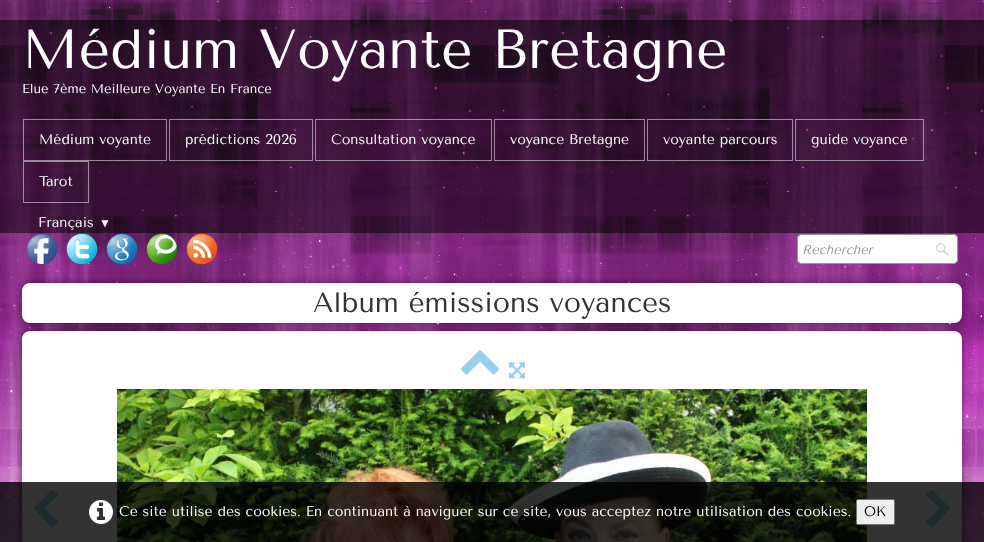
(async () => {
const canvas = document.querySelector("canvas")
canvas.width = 984
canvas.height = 542
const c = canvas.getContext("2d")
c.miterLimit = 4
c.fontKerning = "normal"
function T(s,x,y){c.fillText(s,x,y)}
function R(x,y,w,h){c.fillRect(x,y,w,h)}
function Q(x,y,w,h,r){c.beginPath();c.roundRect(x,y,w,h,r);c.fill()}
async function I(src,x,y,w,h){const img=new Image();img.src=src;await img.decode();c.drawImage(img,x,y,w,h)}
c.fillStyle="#fff"
R(0,0,984,542)
await I("1.png",0,0,984,542)
c.fillStyle="#00000080"
R(0,20,984,213)
c.font="55px Tenor Sans"
c.fillStyle="#fff"
T("Médium Voyante Bretagne",22,68)
c.font="13px Tenor Sans"
T("Elue 7ème Meilleure Voyante En France",22,93)
c.strokeStyle="#ffffff80"
c.strokeRect(23.5,119.5,143,41)
c.font="14px Tenor Sans"
T("Médium voyante",39,144)
c.strokeRect(169.5,119.5,143,41)
T("prédictions 2026",185,144)
c.strokeRect(315.5,119.5,176,41)
T("Consultation voyance",331,144)
c.strokeRect(494.5,119.5,150,41)
T("voyance Bretagne",510,144)
c.strokeRect(647.5,119.5,145,41)
T("voyante parcours",663,144)
c.strokeRect(795.5,119.5,128,41)
T("guide voyance",811,144)
c.strokeRect(23.5,161.5,65,41)
T("Tarot",39,186)
T("Français",38,227)
c.font="12px Liberation Sans"
T("▼",99,227)
await I("2.png",26,233,32,32)
await I("3.png",66,233,32,32)
await I("4.png",106,233,32,32)
await I("5.png",146,233,32,32)
await I("6.png",186,233,32,32)
Q(797,234,161,30,5)
await I("7.png",936,243,13,13)
c.beginPath()
c.roundRect(797.5,234.5,160,29,4.5)
c.strokeStyle="#969696"
c.stroke()
c.font="italic 13px Tenor Sans"
c.fillStyle="#999"
T("Rechercher",802,254)
c.fillStyle="#00000080"
c.filter="blur(5px)"
c.beginPath()
c.roundRect(22,283,940,40,8)
c.fill()
c.filter="none"
c.fillStyle="#fff"
Q(22,283,940,40,8)
c.font="28px Tenor Sans"
c.fillStyle="#333"
T("Album émissions voyances",313,312)
c.fillStyle="#00000080"
c.filter="blur(5px)"
c.beginPath()
c.roundRect(22,331,940,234,8)
c.fill()
c.filter="none"
c.fillStyle="#fff"
Q(22,331,940,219,8)
await I("8.png",461,350,38,25)
await I("9.png",509,362,16,17)
await I("10.png",33,489,25,39)
await I("11.png",117,389,750,153)
await I("12.png",926,489,25,39)
c.fillStyle="#000000cc"
R(0,482,984,60)
await I("13.png",89,500,24,24)
c.font="14px Tenor Sans"
c.fillStyle="#fff"
T("Ce site utilise des cookies. En continuant à naviguer sur ce site, vous acceptez notre utilisation des cookies.",119,516)
c.fillStyle="#efefef"
c.beginPath()
c.roundRect(856.5,499.5,38,25,1.5)
c.fill()
c.strokeStyle="#767676"
c.stroke()
c.fillStyle="#000"
T("OK",864,516)
})()
